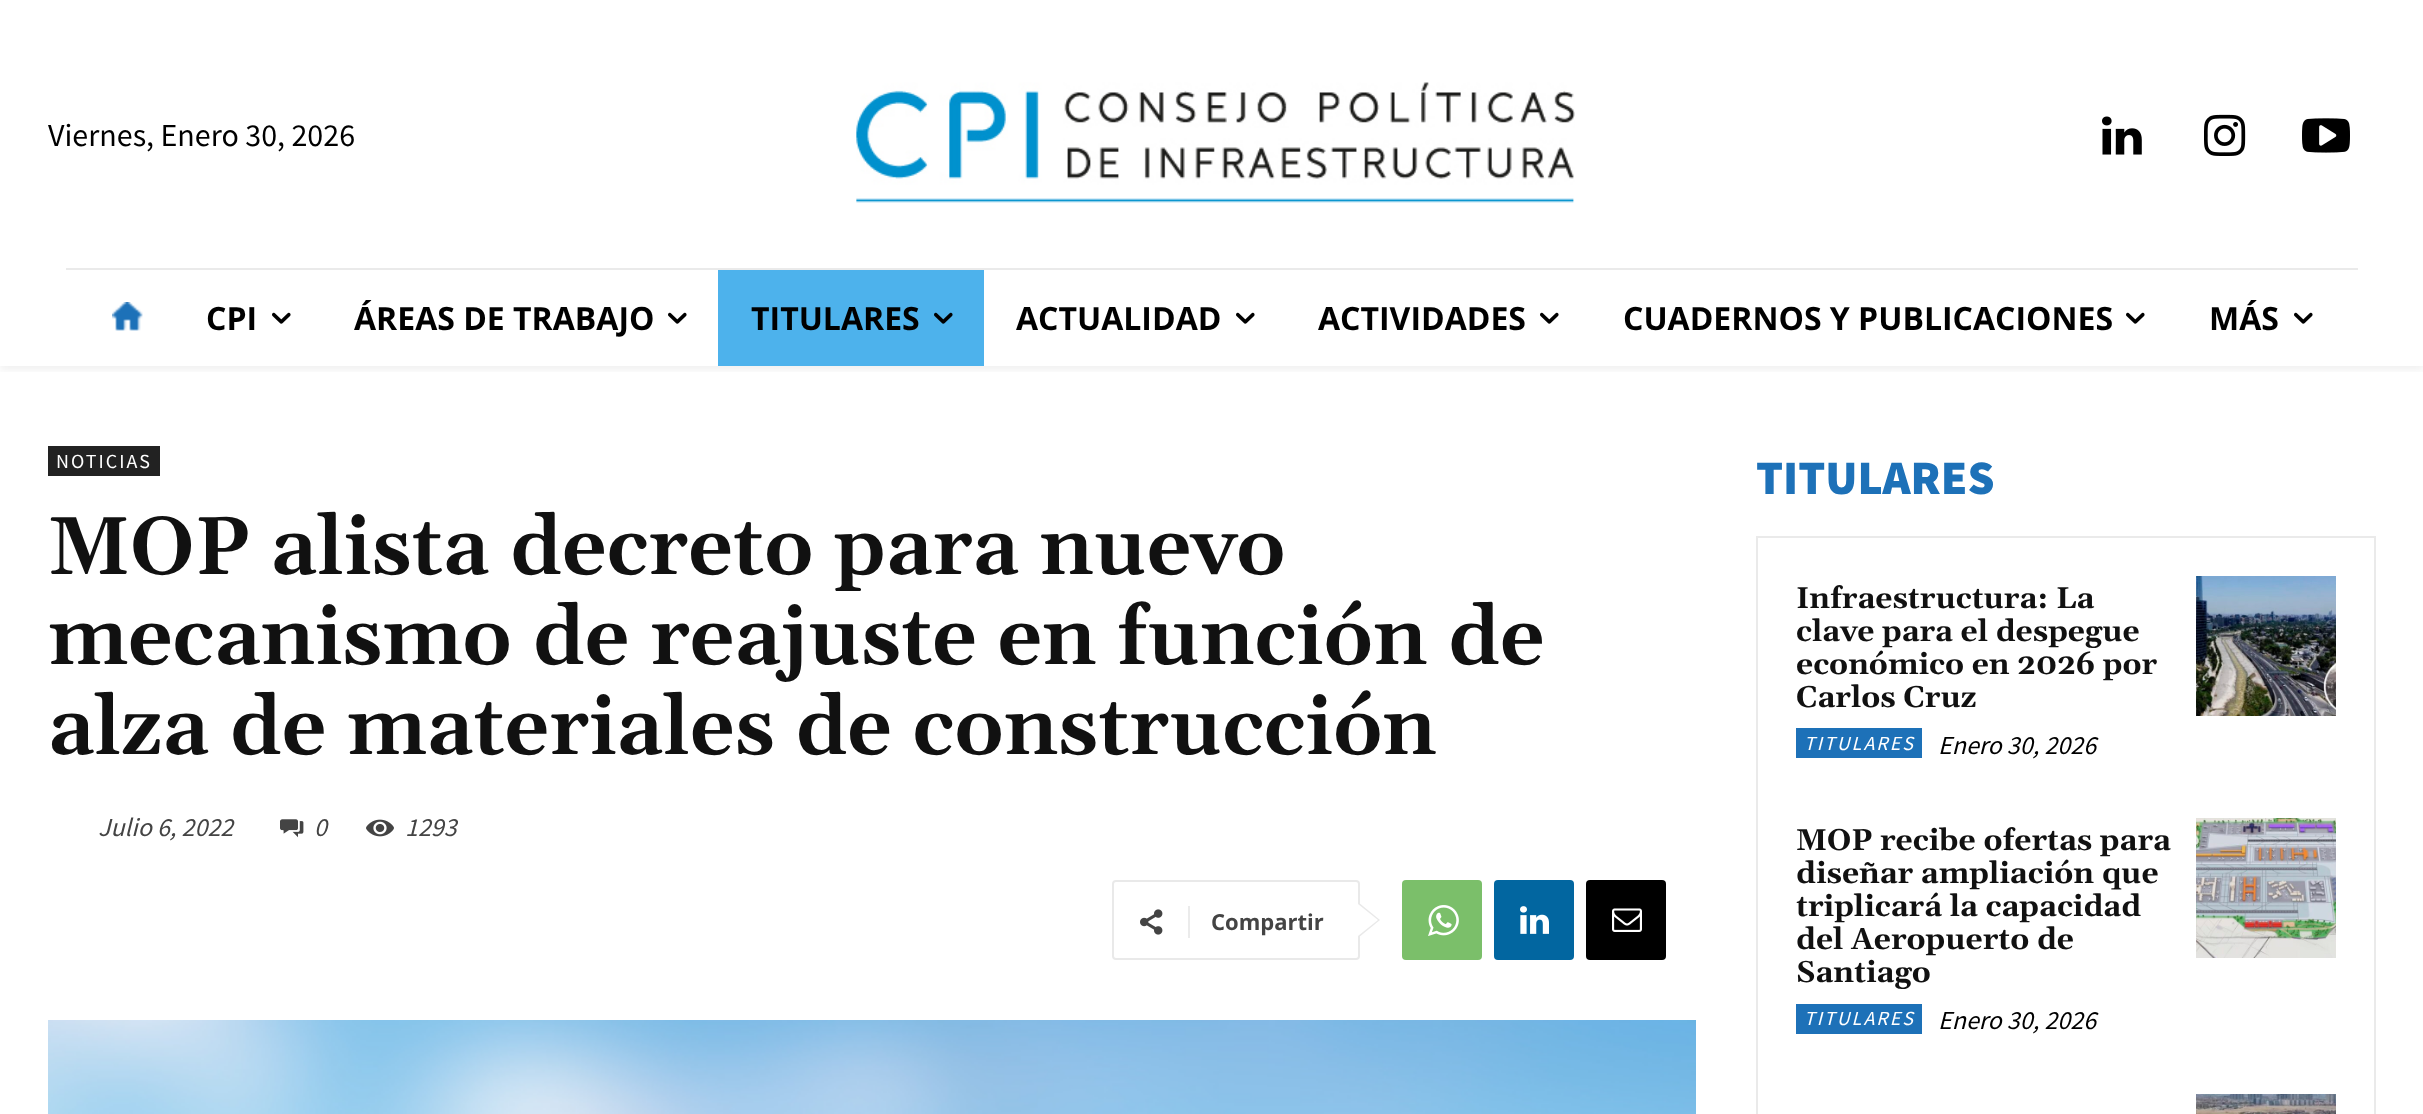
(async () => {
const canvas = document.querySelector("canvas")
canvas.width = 2423
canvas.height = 1114
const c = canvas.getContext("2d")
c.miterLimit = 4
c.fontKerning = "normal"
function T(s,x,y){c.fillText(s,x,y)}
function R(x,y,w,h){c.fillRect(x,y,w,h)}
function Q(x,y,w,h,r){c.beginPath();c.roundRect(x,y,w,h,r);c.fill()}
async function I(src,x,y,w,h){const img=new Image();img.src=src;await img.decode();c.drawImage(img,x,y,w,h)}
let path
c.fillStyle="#fff"
R(0,0,2423,1114)
c.font="32px Source Sans Pro"
c.fillStyle="#000"
T("Viernes, Enero 30, 2026",48,146)
await I("1.png",856,82,719,121)
await I("2.png",2102,116,40,39)
await I("3.png",2204,114,42,42)
await I("4.png",2302,118,48,35)
c.fillStyle="#eaeaea"
R(66,268,2292,2)
c.save()
c.beginPath()
c.rect(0,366,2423,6)
c.clip()
c.fillStyle="#0000000f"
c.filter="blur(4px)"
c.beginPath()
c.rect(0,212,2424,158)
c.fill()
c.filter="none"
c.restore()
await I("5.png",112,302,31,29)
c.font="bold 32px Open Sans"
c.fillStyle="#000"
T("CPI",206,330)
await I("6.png",272,312,19,12)
T("ÁREAS DE TRABAJO",354,330)
await I("6.png",668,312,19,12)
c.fillStyle="#4db2ec"
R(718,270,266,96)
c.fillStyle="#000"
T("TITULARES",751,330)
await I("7.png",934,312,19,12)
T("ACTUALIDAD",1016,330)
await I("6.png",1236,312,19,12)
T("ACTIVIDADES",1318,330)
await I("6.png",1540,312,19,12)
T("CUADERNOS Y PUBLICACIONES",1623,330)
await I("6.png",2126,312,19,12)
T("MÁS",2209,330)
await I("6.png",2294,312,19,12)
c.fillStyle="#222"
R(48,446,112,30)
c.letterSpacing="2px"
c.font="20px Source Sans Pro"
c.fillStyle="#fff"
T("NOTICIAS",56,468)
c.letterSpacing="0px"
c.font="600 82px Gelasio"
c.fillStyle="#111"
T("MOP alista decreto para nuevo",48,574)
T("mecanismo de reajuste en función de",48,664)
T("alza de materiales de construcción",48,754)
c.font="italic 26px Source Sans Pro"
c.fillStyle="#444"
T("Julio 6, 2022",98,836)
await I("8.png",280,819,24,19)
T("0",314,836)
await I("9.png",366,819,28,18)
T("1293",405,836)
c.beginPath()
c.roundRect(1113,881,246,78,3)
c.strokeStyle="#e9e9e9"
c.lineWidth=2
c.stroke()
c.fillStyle="#e9e9e9"
path = new Path2D("M1358 938v-36l22 18z")
c.fill(path)
await I("10.png",1140,909,23,26)
c.fillStyle="#ebebeb"
R(1188,906,2,32)
c.font="bold 22px Open Sans"
c.fillStyle="#444"
T("Compartir",1211,930)
c.fillStyle="#fff"
path = new Path2D("M1358 936v-32l20 16z")
c.fill(path)
c.fillStyle="#7bbf6a"
Q(1402,880,80,80,4)
await I("11.png",1428,905,31,31)
c.fillStyle="#0266a0"
Q(1494,880,80,80,4)
await I("12.png",1520,906,29,28)
c.fillStyle="#000"
Q(1586,880,80,80,4)
await I("13.png",1612,908,30,24)
await I("14.png",48,1020,1648,94)
c.font="900 48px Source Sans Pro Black"
c.fillStyle="#1d71b8"
T("TITULARES",1756,494)
c.strokeStyle="#eaeaea"
c.strokeRect(1757,537,618,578)
c.font="bold 30px Gelasio"
c.fillStyle="#111"
T("Infraestructura: La",1796,608)
T("clave para el despegue",1796,641)
T("económico en 2026 por",1796,674)
T("Carlos Cruz",1796,707)
c.fillStyle="#1d71b8"
R(1796,728,126,30)
c.letterSpacing="2px"
c.font="italic 20px Source Sans Pro"
c.fillStyle="#fff"
T("TITULARES",1804,750)
c.letterSpacing="0px"
c.font="italic 26px Source Sans Pro"
c.fillStyle="#000"
T("Enero 30, 2026",1938,754)
await I("15.png",2196,576,140,140)
c.font="bold 30px Gelasio"
c.fillStyle="#111"
T("MOP recibe ofertas para",1796,850)
T("diseñar ampliación que",1796,883)
T("triplicará la capacidad",1796,916)
T("del Aeropuerto de",1796,949)
T("Santiago",1796,982)
c.fillStyle="#1d71b8"
R(1796,1004,126,30)
c.letterSpacing="2px"
c.font="italic 20px Source Sans Pro"
c.fillStyle="#fff"
T("TITULARES",1804,1025)
c.letterSpacing="0px"
c.font="italic 26px Source Sans Pro"
c.fillStyle="#000"
T("Enero 30, 2026",1938,1029)
await I("16.png",2196,818,140,140)
await I("17.png",2196,1094,140,20)
})()
